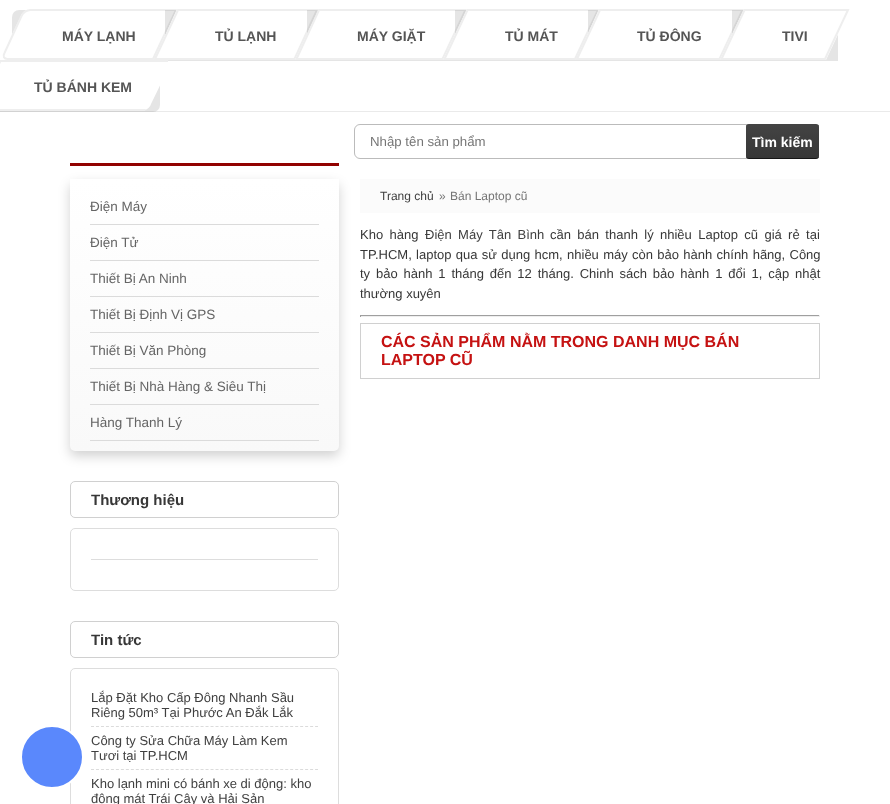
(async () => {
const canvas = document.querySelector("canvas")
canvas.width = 890
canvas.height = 804
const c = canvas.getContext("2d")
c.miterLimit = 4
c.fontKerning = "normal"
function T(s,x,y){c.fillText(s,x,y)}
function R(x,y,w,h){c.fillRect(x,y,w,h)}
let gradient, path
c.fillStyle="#fff"
R(0,0,890,804)
c.fillStyle="#0000001a"
c.filter="blur(0.5px)"
c.beginPath()
c.roundRect(12,10,153,51,7)
c.fill()
c.filter="none"
c.fillStyle="#fff"
path = new Path2D("M31 9h146l-23 51h-147c-4 0-6-3-4-7l18-37c1-4 6-7 10-7z")
c.fill(path)
path = new Path2D("M30.5 10h145.5l-23 49h-145.5c-3.5 0-5-2.5-3-6l17-37c1.5-3.5 5.5-6 9-6z")
c.strokeStyle="#eee"
c.lineWidth=2
c.stroke(path)
c.font="bold 14px Liberation Sans"
c.fillStyle="#555"
T("MÁY LẠNH",62,41)
c.fillStyle="#0000001a"
c.filter="blur(0.5px)"
c.beginPath()
c.rect(165,10,142,51)
c.fill()
c.filter="none"
c.fillStyle="#fff"
path = new Path2D("M177 9h142l-24 51h-141z")
c.fill(path)
path = new Path2D("M178 10h139l-22.5 49h-139.5z")
c.stroke(path)
c.fillStyle="#555"
T("TỦ LẠNH",215,41)
c.fillStyle="#0000001a"
c.filter="blur(0.5px)"
c.beginPath()
c.rect(307,10,148,51)
c.fill()
c.filter="none"
c.fillStyle="#fff"
path = new Path2D("M319 9h148l-24 51h-148z")
c.fill(path)
path = new Path2D("M319 10h146.5l-23 49h-146z")
c.stroke(path)
c.fillStyle="#555"
T("MÁY GIẶT",357,41)
c.fillStyle="#0000001a"
c.filter="blur(0.5px)"
c.beginPath()
c.rect(455,10,133,51)
c.fill()
c.filter="none"
c.fillStyle="#fff"
path = new Path2D("M467 9h132l-23 51h-133z")
c.fill(path)
path = new Path2D("M467.5 10h130.5l-23 49h-130.5z")
c.stroke(path)
c.fillStyle="#555"
T("TỦ MÁT",505,41)
c.fillStyle="#0000001a"
c.filter="blur(0.5px)"
c.beginPath()
c.rect(588,10,144,51)
c.fill()
c.filter="none"
c.fillStyle="#fff"
path = new Path2D("M599 9h145l-24 51h-144z")
c.fill(path)
path = new Path2D("M600 10h142.5l-23 49h-142.5z")
c.stroke(path)
c.fillStyle="#555"
T("TỦ ĐÔNG",637,41)
c.fillStyle="#0000001a"
c.filter="blur(0.5px)"
c.beginPath()
c.rect(732,10,106,51)
c.fill()
c.filter="none"
c.fillStyle="#fff"
path = new Path2D("M744 9h106l-24 51h-106z")
c.fill(path)
path = new Path2D("M744.5 10h103.5l-23 49h-103.5z")
c.stroke(path)
c.fillStyle="#555"
T("TIVI",782,41)
c.fillStyle="#eaeaea"
R(0,111,890,1)
c.fillStyle="#0000001a"
c.filter="blur(0.5px)"
c.beginPath()
c.roundRect(-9,61,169,51,7)
c.fill()
c.filter="none"
c.fillStyle="#fff"
path = new Path2D("M0 60h165c4 0 6 3 4 7l-18 37c-1 4-6 7-10 7h-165z")
c.fill(path)
c.fillStyle="#eee"
path = new Path2D("M0 60h168v2h-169z")
c.fill(path)
path = new Path2D("M-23 109h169l-1 2h-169z")
c.fill(path)
path = new Path2D("M0 60h2l-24 51h-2z")
c.fill(path)
c.fillStyle="#555"
T("TỦ BÁNH KEM",34,92)
c.beginPath()
c.roundRect(354.5,124.5,464,34,5.5)
c.strokeStyle="#bbb"
c.lineWidth=1
c.stroke()
c.font="13.25px Liberation Sans"
c.fillStyle="#757575"
T("Nhập tên sản phẩm",370,146)
c.save()
c.beginPath()
c.roundRect(746,124,73,35,3)
c.clip()
gradient = c.createLinearGradient(746,125,746,158)
gradient.addColorStop(0,"#434343")
gradient.addColorStop(1,"#373737")
c.fillStyle = gradient
R(746,125,73,33)
c.restore()
c.fillStyle="#434343"
path = new Path2D("M749 124c-2 0-3 1-3 3c0-1 1-2 3-2h67c2 0 3 1 3 2c0-2-1-3-3-3z")
c.fill(path)
c.fillStyle="#161616"
path = new Path2D("M816 159c2 0 3-1 3-3c0 1-1 2-3 2h-67c-2 0-3-1-3-2c0 2 1 3 3 3z")
c.fill(path)
c.font="bold 14px Liberation Sans"
c.fillStyle="#fff"
T("Tìm kiếm",752,147)
c.fillStyle="#0000002e"
c.filter="blur(6px)"
c.beginPath()
c.roundRect(70,184,269,272,5)
c.fill()
c.filter="none"
c.fillStyle="#910100"
R(70,163,269,3)
c.beginPath()
c.roundRect(70.5,668.5,268,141,4.5)
c.strokeStyle="#ddd"
c.stroke()
c.fillStyle="#5a88fc"
c.beginPath()
c.arc(52,757,31,0,7)
c.fill()
c.strokeStyle="#fff"
c.lineWidth=2
c.stroke()
gradient = c.createLinearGradient(70,179,70,451)
gradient.addColorStop(0,"#fff")
gradient.addColorStop(1,"#f9f9f9")
c.fillStyle = gradient
c.beginPath()
c.roundRect(70,179,269,272,[0,0,5,5])
c.fill()
c.fillStyle="#dbdbdb"
R(90,224,229,1)
c.font="13.5px Liberation Sans"
c.fillStyle="#656565"
T("Điện Máy",90,211)
c.fillStyle="#dbdbdb"
R(90,260,229,1)
c.fillStyle="#656565"
T("Điện Tử",90,247)
c.fillStyle="#dbdbdb"
R(90,296,229,1)
c.fillStyle="#656565"
T("Thiết Bị An Ninh",90,283)
c.fillStyle="#dbdbdb"
R(90,332,229,1)
c.fillStyle="#656565"
T("Thiết Bị Định Vị GPS",90,319)
c.fillStyle="#dbdbdb"
R(90,368,229,1)
c.fillStyle="#656565"
T("Thiết Bị Văn Phòng",90,355)
c.fillStyle="#dbdbdb"
R(90,404,229,1)
c.fillStyle="#656565"
T("Thiết Bị Nhà Hàng & Siêu Thị",90,391)
c.fillStyle="#dbdbdb"
R(90,440,229,1)
c.fillStyle="#656565"
T("Hàng Thanh Lý",90,427)
c.beginPath()
c.roundRect(70.5,481.5,268,36,4.5)
c.strokeStyle="#d0d0d0"
c.lineWidth=1
c.stroke()
c.font="bold 15px Liberation Sans"
c.fillStyle="#373737"
T("Thương hiệu",91,505)
c.beginPath()
c.roundRect(70.5,528.5,268,62,4.5)
c.strokeStyle="#ddd"
c.stroke()
c.fillStyle="#ddd"
R(91,559,227,1)
c.beginPath()
c.roundRect(70.5,621.5,268,36,4.5)
c.strokeStyle="#d0d0d0"
c.stroke()
c.fillStyle="#373737"
T("Tin tức",91,645)
path = new Path2D("M91 726.5h227")
c.strokeStyle="#dbdbdb"
c.setLineDash([3,1.98])
c.stroke(path)
c.font="13px Liberation Sans"
c.fillStyle="#404040"
T("Lắp Đặt Kho Cấp Đông Nhanh Sầu",91,702)
T("Riêng 50m³ Tại Phước An Đắk Lắk",91,717)
path = new Path2D("M91 769.5h227")
c.stroke(path)
T("Công ty Sửa Chữa Máy Làm Kem",91,745)
T("Tươi tại TP.HCM",91,760)
T("Kho lạnh mini có bánh xe di động: kho",91,788)
T("đông mát Trái Cây và Hải Sản",91,803)
c.fillStyle="#fbfbfb"
R(360,179,460,34)
c.font="12px Liberation Sans"
c.fillStyle="#404040"
T("Trang chủ",380,200)
c.fillStyle="#757575"
T("»",439,200)
T("Bán Laptop cũ",450,200)
c.wordSpacing="2.75px"
c.font="13px Liberation Sans"
c.fillStyle="#373737"
T("Kho hàng",360,239)
c.fillStyle="#404040"
T("Điện Máy Tân Bình",425,239)
c.fillStyle="#373737"
T("cần bán thanh lý nhiều Laptop cũ giá rẻ tại",550,239)
c.wordSpacing="0.7px"
T("TP.HCM, laptop qua sử dụng hcm, nhiều máy còn bảo hành chính hãng, Công",360,259)
c.wordSpacing="2.25px"
T("ty bảo hành 1 tháng đến 12 tháng. Chinh sách bảo hành 1 đổi 1, cập nhật",360,278)
c.wordSpacing="0px"
T("thường xuyên",360,298)
c.fillStyle="#9f9f9f"
R(360,315,460,1)
c.fillStyle="#eee"
R(819,315,1,2)
R(360,316,460,1)
c.fillStyle="#9f9f9f"
R(360,315,1,2)
c.strokeStyle="#d0d0d0"
c.setLineDash([])
c.strokeRect(360.5,323.5,459,55)
c.font="bold 16px Liberation Sans"
c.fillStyle="#c51212"
T("CÁC SẢN PHẨM NẰM TRONG DANH MỤC BÁN",381,347)
T("LAPTOP CŨ",381,365)
})()
